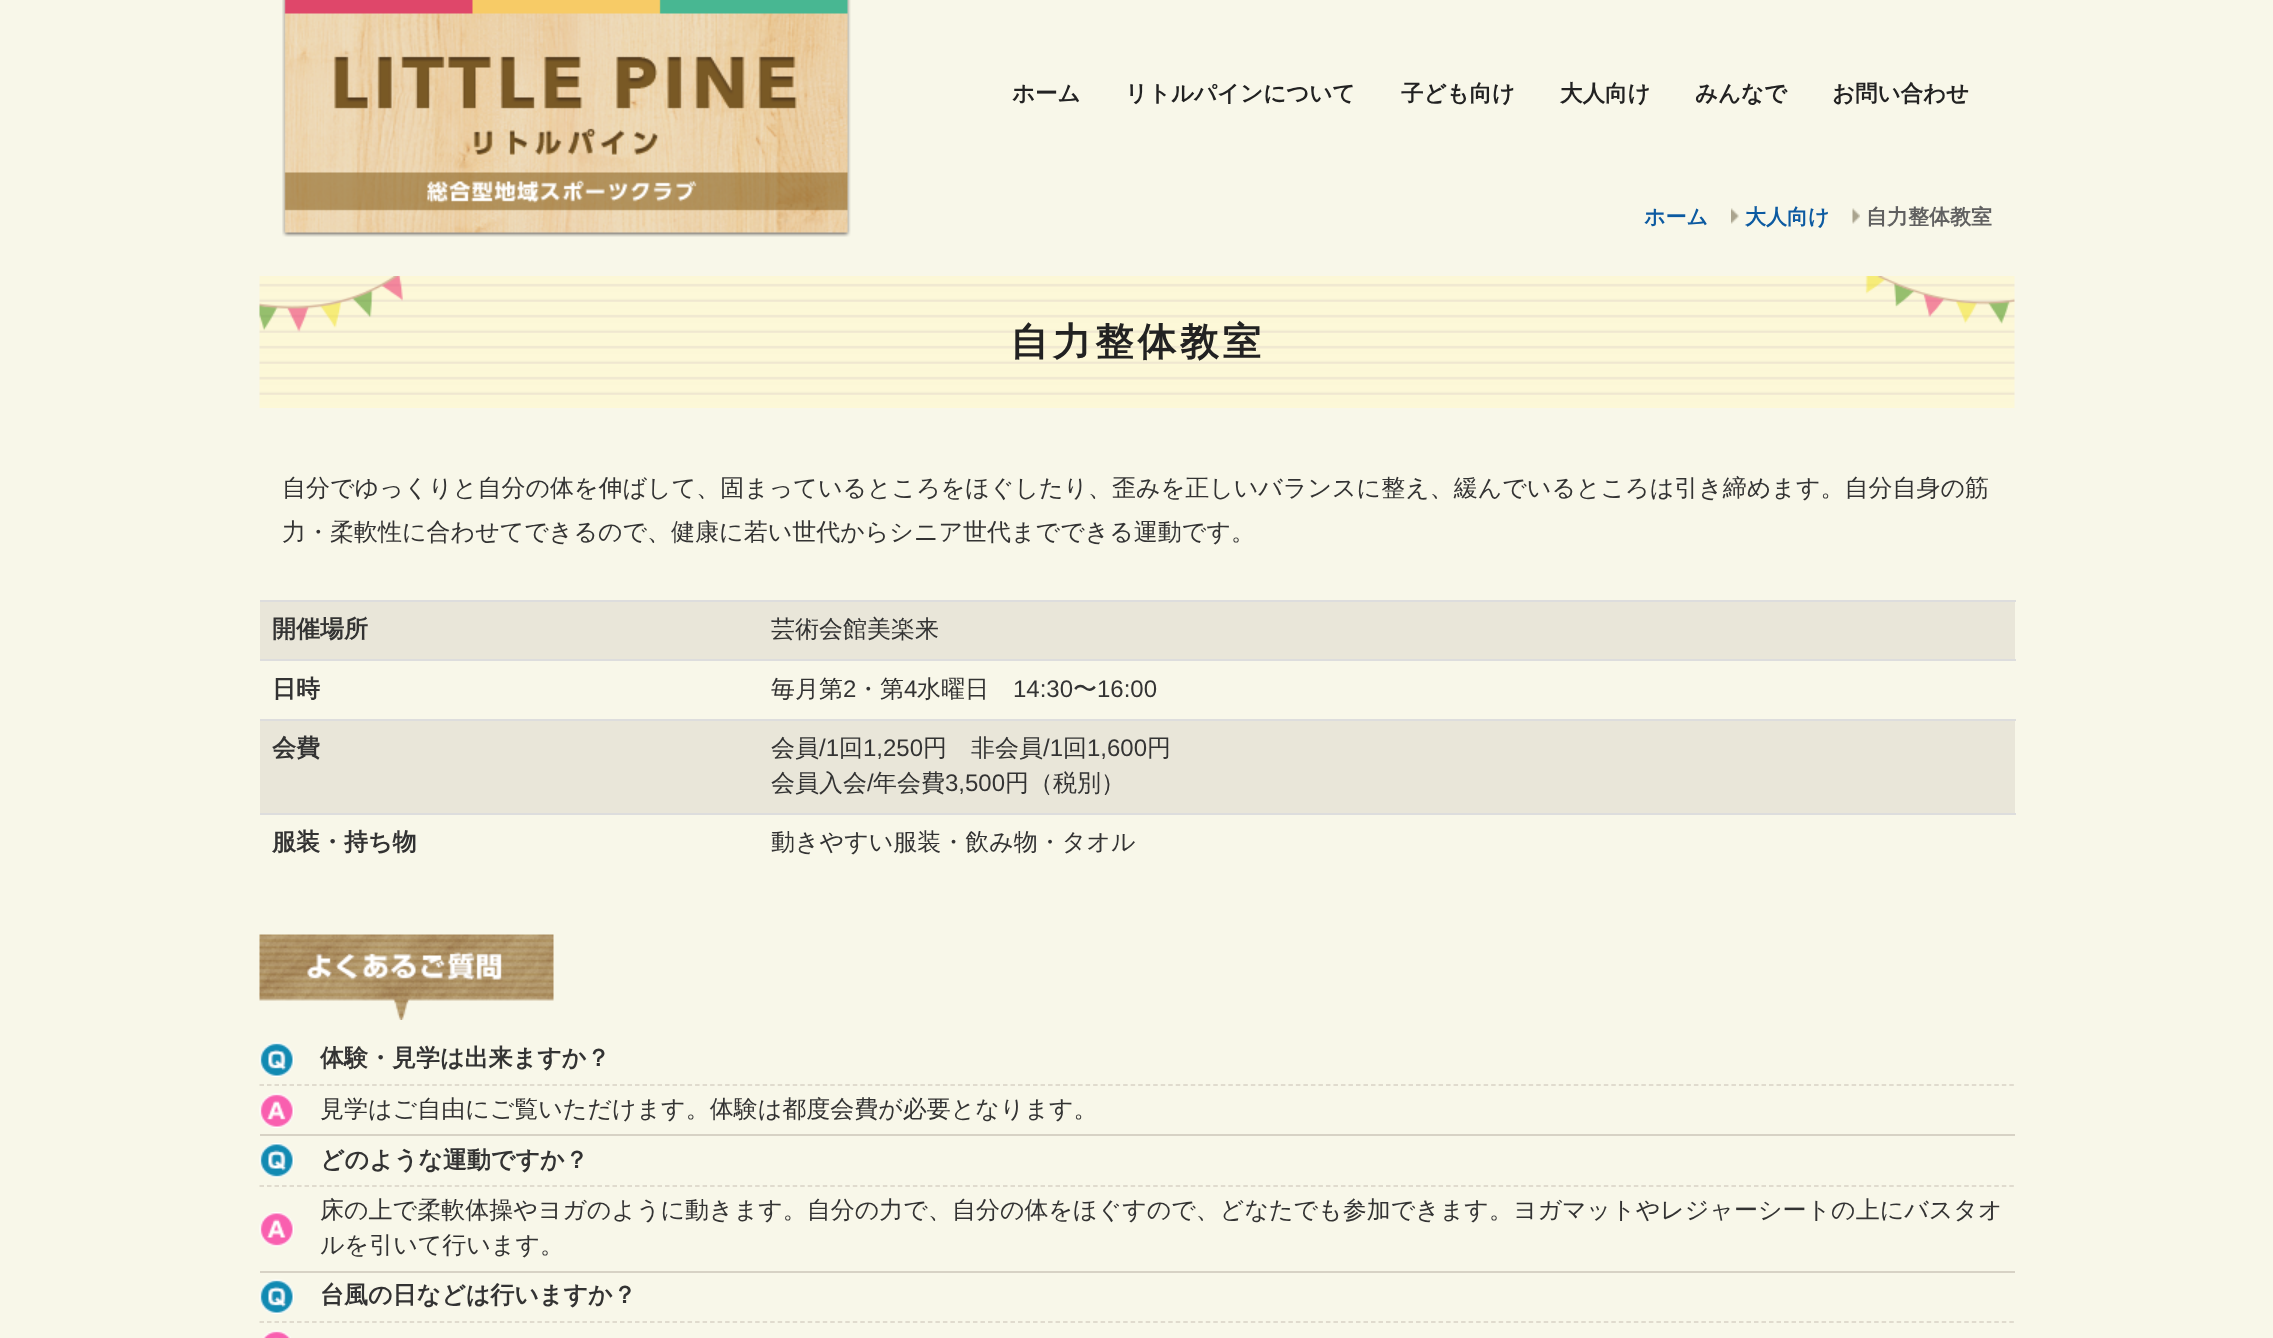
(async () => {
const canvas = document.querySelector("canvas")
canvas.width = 2273
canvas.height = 1338
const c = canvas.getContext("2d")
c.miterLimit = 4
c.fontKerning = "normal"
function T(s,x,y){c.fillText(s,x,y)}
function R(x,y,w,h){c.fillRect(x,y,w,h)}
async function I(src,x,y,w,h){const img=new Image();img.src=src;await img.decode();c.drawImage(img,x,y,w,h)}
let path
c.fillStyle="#f8f7e9"
R(0,0,2273,1338)
await I("1.png",282,0,569,237)
c.font="bold 22.5px WenQuanYi Zen Hei"
c.fillStyle="#222"
T("ホーム",1012,101)
T("リトルパインについて",1125,101)
T("子ども向け",1401,101)
T("大人向け",1560,101)
T("みんなで",1695,101)
T("お問い合わせ",1832,101)
c.font="bold 21px WenQuanYi Zen Hei"
c.fillStyle="#0c5aa1"
T("ホーム",1644,224)
await I("2.png",1731,208,8,16)
T("大人向け",1745,224)
await I("3.png",1852,208,8,16)
c.fillStyle="#606060"
T("自力整体教室",1866,224)
await I("4.png",259,276,1756,132)
c.letterSpacing="4px"
c.font="bold 38.5px WenQuanYi Zen Hei"
c.fillStyle="#222"
T("自力整体教室",1010,355)
c.letterSpacing="0px"
c.font="500 24px WenQuanYi Zen Hei"
c.fillStyle="#333"
T("自分でゆっくりと自分の体を伸ばして、固まっているところをほぐしたり、歪みを正しいバランスに整え、緩んでいるところは引き締めます。自分自身の筋",282,496)
T("力・柔軟性に合わせてできるので、健康に若い世代からシニア世代までできる運動です。",282,540)
c.fillStyle="#e9e6d9"
R(260,602,1755,57)
c.font="bold 24px WenQuanYi Zen Hei"
c.fillStyle="#333"
T("開催場所",272,637)
c.fillStyle="#ddd"
R(260,600,1756,2)
c.font="500 24px WenQuanYi Zen Hei"
c.fillStyle="#333"
T("芸術会館美楽来",771,637)
c.font="bold 24px WenQuanYi Zen Hei"
T("日時",272,697)
c.fillStyle="#ddd"
R(260,659,1756,2)
c.font="500 24px WenQuanYi Zen Hei"
c.fillStyle="#333"
T("毎月第",771,697)
c.font="24px Liberation Sans"
T("2",843,697)
c.font="500 24px WenQuanYi Zen Hei"
T("・第",856,697)
c.font="24px Liberation Sans"
T("4",904,697)
c.font="500 24px WenQuanYi Zen Hei"
T("水曜日",917,697)
c.font="24px Liberation Sans"
T("14:30",1013,697)
c.font="500 24px WenQuanYi Zen Hei"
T("〜",1073,697)
c.font="24px Liberation Sans"
T("16:00",1097,697)
c.fillStyle="#e9e6d9"
R(260,721,1755,92)
c.font="bold 24px WenQuanYi Zen Hei"
c.fillStyle="#333"
T("会費",272,756)
c.fillStyle="#ddd"
R(260,719,1756,2)
c.font="500 24px WenQuanYi Zen Hei"
c.fillStyle="#333"
T("会員",771,756)
c.font="24px Liberation Sans"
T("/1",819,756)
c.font="500 24px WenQuanYi Zen Hei"
T("回",839,756)
c.font="24px Liberation Sans"
T("1,250",863,756)
c.font="500 24px WenQuanYi Zen Hei"
T("円　非会員",923,756)
c.font="24px Liberation Sans"
T("/1",1043,756)
c.font="500 24px WenQuanYi Zen Hei"
T("回",1063,756)
c.font="24px Liberation Sans"
T("1,600",1087,756)
c.font="500 24px WenQuanYi Zen Hei"
T("円",1147,756)
T("会員入会",771,791)
c.font="24px Liberation Sans"
T("/",867,791)
c.font="500 24px WenQuanYi Zen Hei"
T("年会費",873,791)
c.font="24px Liberation Sans"
T("3,500",945,791)
c.font="500 24px WenQuanYi Zen Hei"
T("円（税別）",1005,791)
c.font="bold 24px WenQuanYi Zen Hei"
T("服装・持ち物",272,850)
c.fillStyle="#ddd"
R(260,813,1756,2)
c.font="500 24px WenQuanYi Zen Hei"
c.fillStyle="#333"
T("動きやすい服装・飲み物・タオル",771,850)
await I("5.png",259,934,295,86)
await I("6.png",259,1042,35,35)
path = new Path2D("M259.5 1085h1755")
c.strokeStyle="#d7d2c5"
c.lineWidth=1.5
c.setLineDash([4.5,3.01])
c.stroke(path)
c.font="bold 24px WenQuanYi Zen Hei"
T("体験・見学は出来ますか？",320,1066)
await I("7.png",259,1093,35,35)
c.fillStyle="#d7d2c5"
R(260,1134,1755,2)
c.font="500 24px WenQuanYi Zen Hei"
c.fillStyle="#333"
T("見学はご自由にご覧いただけます。体験は都度会費が必要となります。",320,1117)
await I("8.png",259,1143,35,35)
path = new Path2D("M259.5 1186h1755")
c.stroke(path)
c.font="bold 24px WenQuanYi Zen Hei"
T("どのような運動ですか？",320,1168)
await I("9.png",259,1212,35,35)
c.fillStyle="#d7d2c5"
R(260,1271,1755,2)
c.font="500 24px WenQuanYi Zen Hei"
c.fillStyle="#333"
T("床の上で柔軟体操やヨガのように動きます。自分の力で、自分の体をほぐすので、どなたでも参加できます。ヨガマットやレジャーシートの上にバスタオ",320,1218)
T("ルを引いて行います。",320,1253)
await I("6.png",259,1279,35,35)
path = new Path2D("M259.5 1322h1755")
c.stroke(path)
c.font="bold 24px WenQuanYi Zen Hei"
T("台風の日などは行いますか？",320,1303)
await I("10.png",262,1330,29,8)
})()
